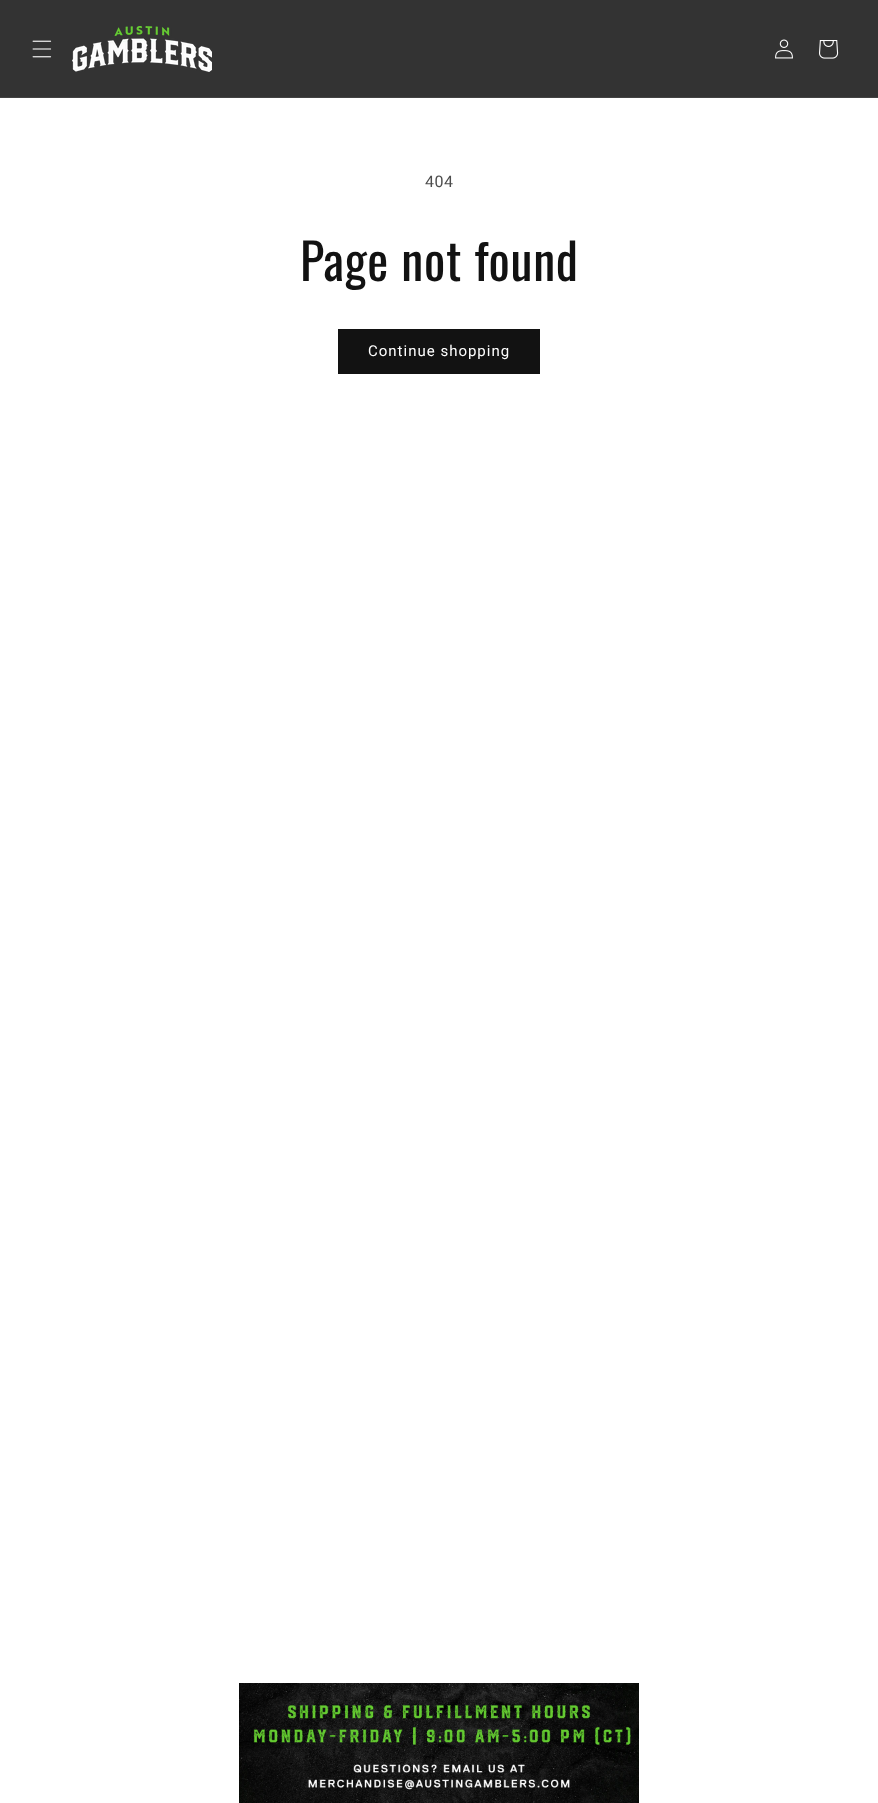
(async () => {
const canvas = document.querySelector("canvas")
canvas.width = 878
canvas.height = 1803
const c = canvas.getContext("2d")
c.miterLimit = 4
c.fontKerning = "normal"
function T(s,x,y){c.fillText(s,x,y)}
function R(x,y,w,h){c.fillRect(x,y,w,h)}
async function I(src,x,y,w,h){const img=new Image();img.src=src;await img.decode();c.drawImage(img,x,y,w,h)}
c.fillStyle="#fff"
R(0,0,878,1803)
c.fillStyle="#333"
R(0,0,878,97)
c.fillStyle="#434343"
R(0,97,878,1)
await I("1.png",32,40,20,18)
await I("2.png",72,26,140,46)
await I("3.png",775,39,18,20)
await I("4.png",819,40,20,19)
c.letterSpacing="0.5px"
c.font="16px Roboto"
c.fillStyle="#4d4d4d"
T("404",425,187)
c.letterSpacing="0.75px"
c.font="50px Oswald"
c.fillStyle="#121212"
T("Page not found",300,281)
R(338,329,202,45)
c.letterSpacing="1px"
c.font="15px Roboto"
c.fillStyle="#fff"
T("Continue shopping",368,356)
await I("5.png",239,1683,400,120)
})()
